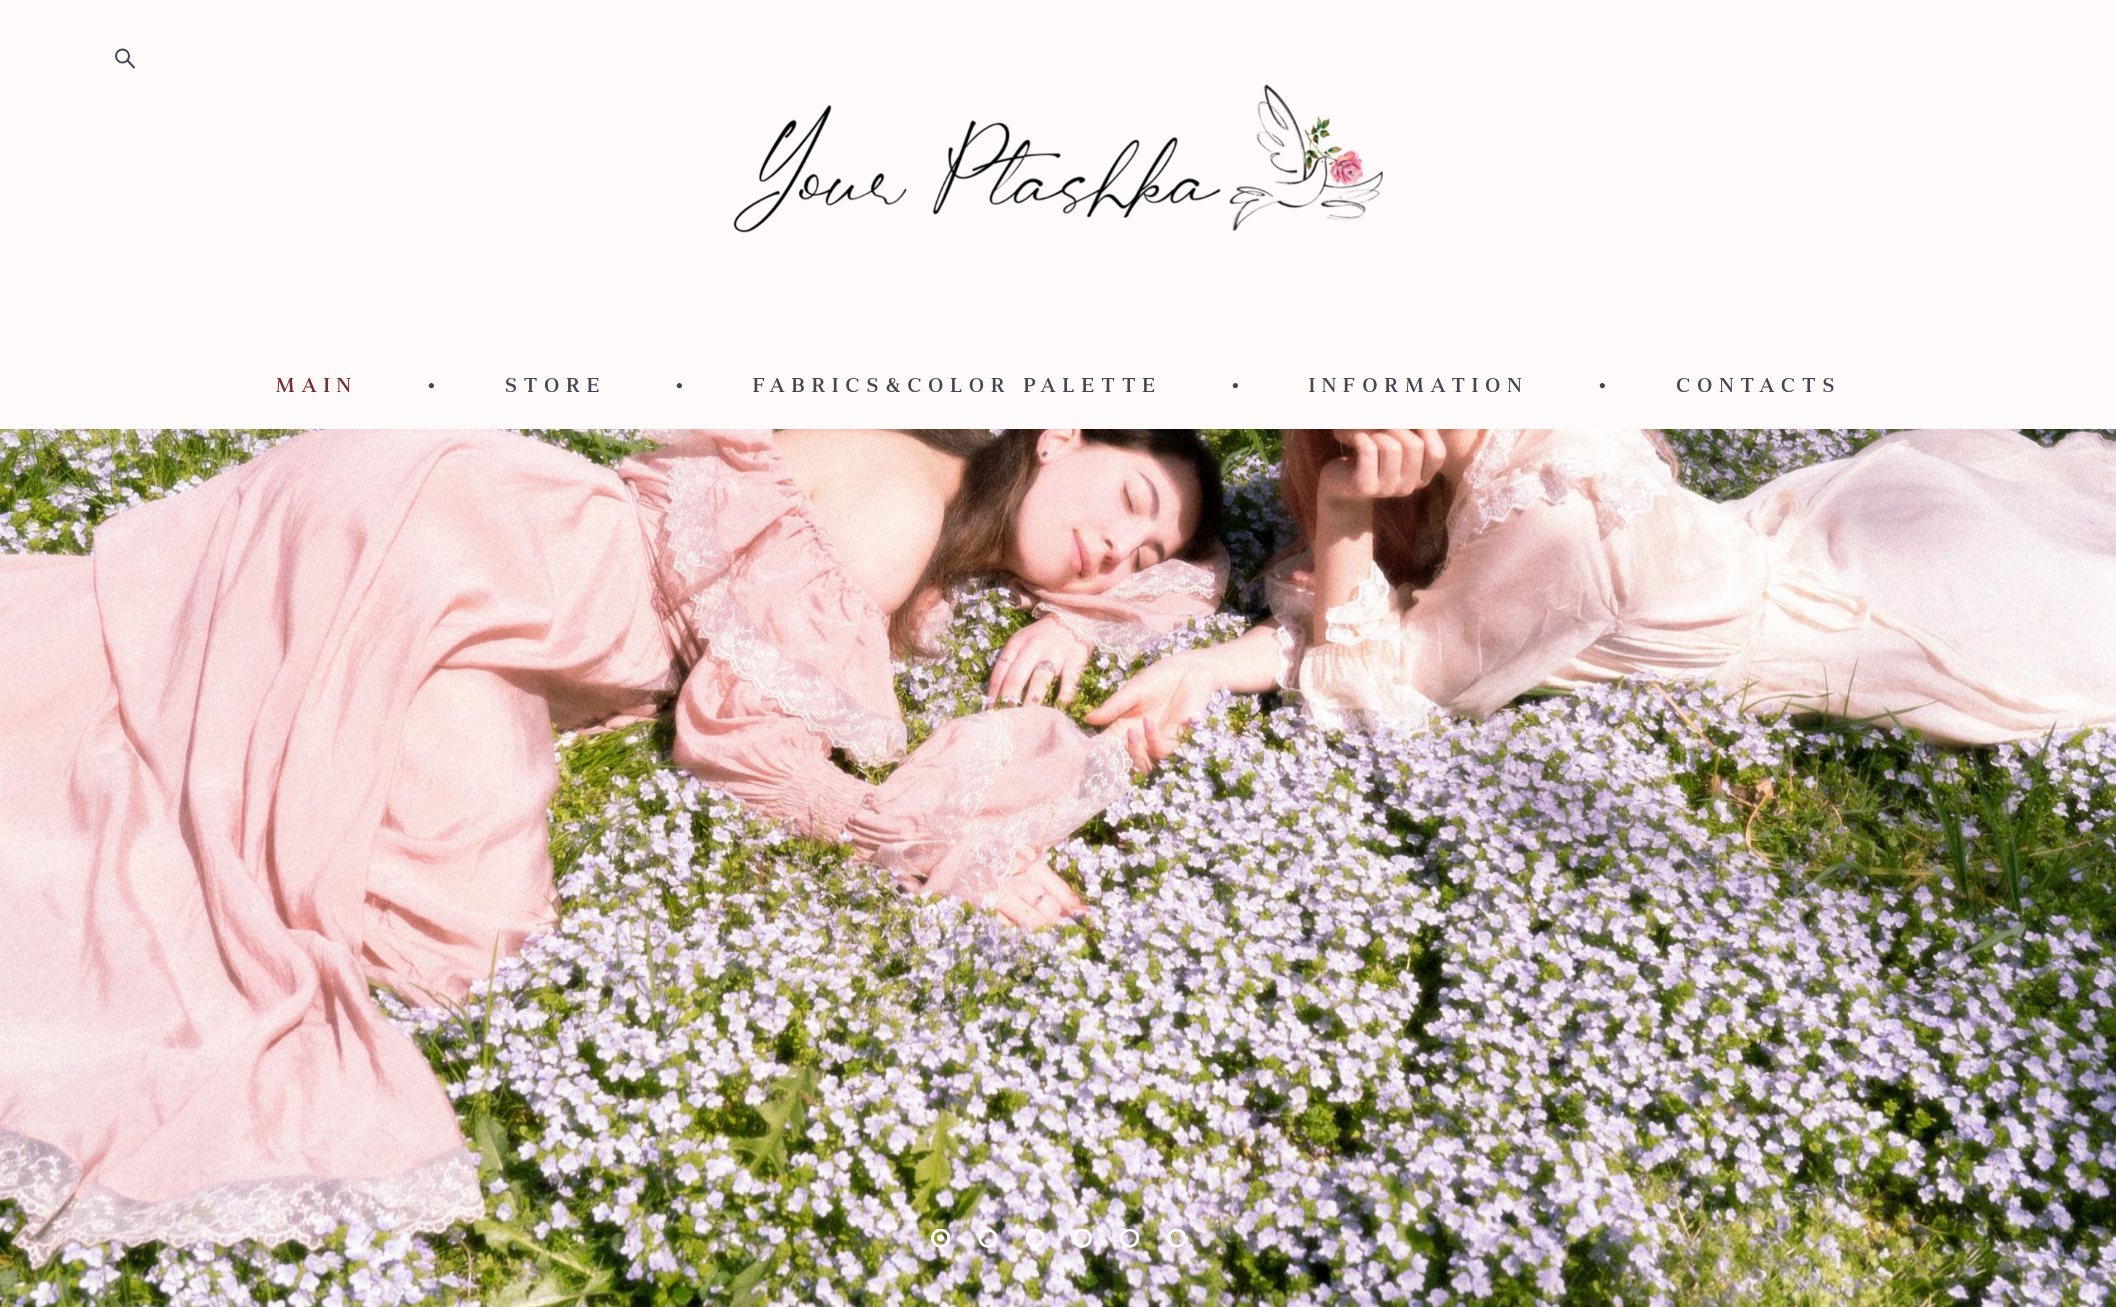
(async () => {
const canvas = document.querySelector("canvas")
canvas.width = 2116
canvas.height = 1307
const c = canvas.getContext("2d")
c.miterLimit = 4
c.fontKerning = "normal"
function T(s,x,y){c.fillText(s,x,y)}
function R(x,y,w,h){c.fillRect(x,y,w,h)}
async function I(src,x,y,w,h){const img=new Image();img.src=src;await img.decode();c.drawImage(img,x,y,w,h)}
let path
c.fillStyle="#fff"
R(0,0,2116,1307)
c.fillStyle="#fffafa"
R(0,0,2116,429)
c.beginPath()
c.arc(122.5,56,6.5,0,7)
c.strokeStyle="#464553"
c.lineWidth=2
c.stroke()
path = new Path2D("M127.5 60.5l6.5 7")
c.lineCap="round"
c.lineJoin="round"
c.stroke(path)
await I("1.png",733,84,650,149)
c.letterSpacing="7.7px"
c.font="bold 19.25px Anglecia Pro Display"
c.fillStyle="#752f2f"
T("MAIN",276,392)
c.letterSpacing="0px"
c.font="bold 19.25px Liberation Serif"
c.fillStyle="#464553"
T("•",428,392)
c.letterSpacing="7.7px"
c.font="bold 19.25px Anglecia Pro Display"
T("STORE",505,392)
c.letterSpacing="0px"
c.font="bold 19.25px Liberation Serif"
T("•",676,392)
c.letterSpacing="7.7px"
c.font="bold 19.25px Anglecia Pro Display"
T("FABRICS&COLOR PALETTE",753,392)
c.letterSpacing="0px"
c.font="bold 19.25px Liberation Serif"
T("•",1232,392)
c.letterSpacing="7.7px"
c.font="bold 19.25px Anglecia Pro Display"
T("INFORMATION",1309,392)
c.letterSpacing="0px"
c.font="bold 19.25px Liberation Serif"
T("•",1599,392)
c.letterSpacing="7.7px"
c.font="bold 19.25px Anglecia Pro Display"
T("CONTACTS",1676,392)
await I("2.png",0,429,2116,878)
await I("3.png",931,1229,19,19)
await I("4.png",978,1229,20,19)
await I("5.png",1026,1229,19,19)
await I("6.png",1073,1229,19,19)
await I("7.png",1120,1229,19,19)
await I("8.png",1167,1229,20,19)
})()
